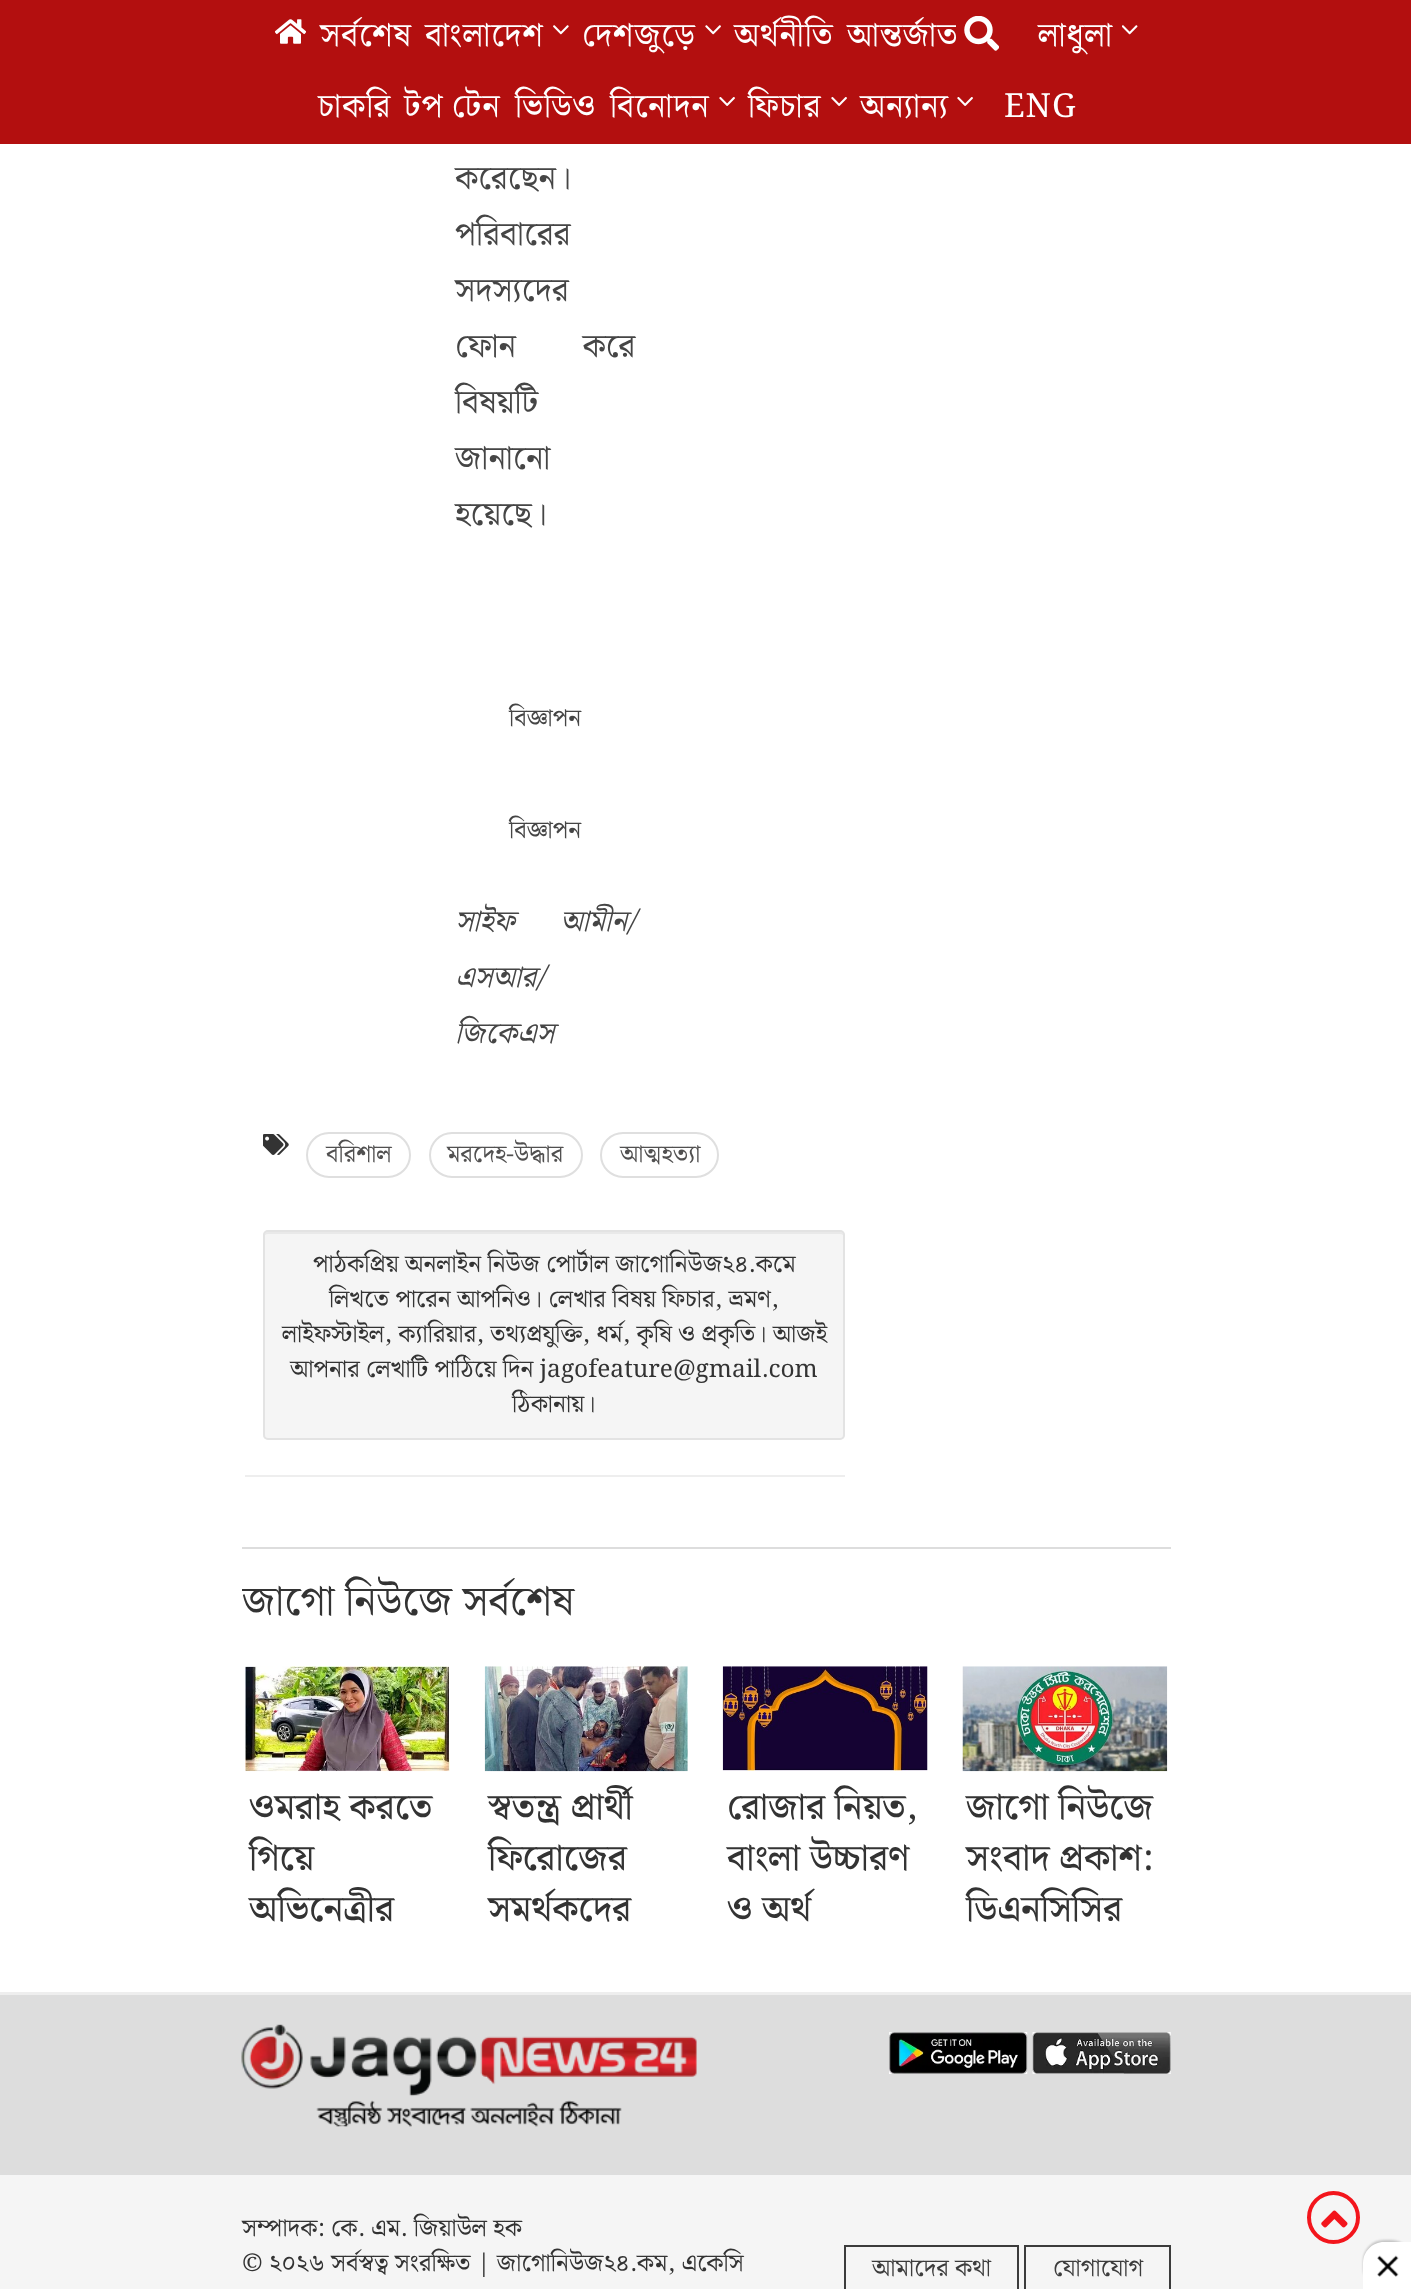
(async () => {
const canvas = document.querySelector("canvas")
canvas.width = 1411
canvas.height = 2295
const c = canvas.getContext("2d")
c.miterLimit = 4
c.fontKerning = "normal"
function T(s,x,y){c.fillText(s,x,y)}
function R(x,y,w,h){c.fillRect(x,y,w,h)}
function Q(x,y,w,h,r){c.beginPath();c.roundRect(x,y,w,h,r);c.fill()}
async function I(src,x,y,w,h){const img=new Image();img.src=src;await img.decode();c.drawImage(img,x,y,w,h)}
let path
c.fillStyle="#fff"
R(0,0,1411,2295)
c.fillStyle="#b30f0f"
R(0,0,1411,144)
await I("1.png",275,19,31,25)
c.letterSpacing="0.9px"
c.font="33.25px Noto Serif Bengali"
c.fillStyle="#fff"
T("সর্বশেষ",320,46)
T("বাংলাদেশ",425,46)
await I("2.png",553,25,16,10)
T("দেশজুড়ে",582,46)
await I("3.png",705,25,16,10)
T("অর্থনীতি",734,46)
T("আন্তর্জাত",847,46)
T("লাধুলা",1038,46)
await I("4.png",1122,25,16,10)
T("চাকরি",318,117)
c.wordSpacing="-1px"
T("টপ টেন",404,117)
c.wordSpacing="0px"
T("ভিডিও",515,117)
T("বিনোদন",610,117)
await I("5.png",719,97,16,9)
T("ফিচার",748,117)
await I("5.png",831,97,16,9)
T("অন্যান্য",860,117)
await I("5.png",957,97,16,9)
T("ENG",1004,117)
c.fillStyle="#b30f0f"
R(956,25,8,19)
await I("6.png",964,16,35,35)
c.letterSpacing="0px"
c.fillStyle="#454545"
T("করেছেন।",455,189)
T("পরিবারের",455,245)
T("সদস্যদের",455,301)
c.wordSpacing="58px"
T("ফোন করে",455,357)
c.wordSpacing="0px"
T("বিষয়টি",455,413)
T("জানানো",455,469)
T("হয়েছে।",455,525)
c.font="24.5px Noto Serif Bengali"
T("বিজ্ঞাপন",509,726)
T("বিজ্ঞাপন",509,838)
c.wordSpacing="38px"
c.font="italic 29.75px Noto Serif Bengali"
T("সাইফ আমীন/",455,931)
c.wordSpacing="0px"
T("এসআর/",455,987)
T("জিকেএস",455,1043)
await I("7.png",263,1134,26,21)
c.beginPath()
c.roundRect(307,1133,103,44,22)
c.strokeStyle="#dfdfdf"
c.lineWidth=2
c.stroke()
c.font="24.5px Noto Serif Bengali"
c.fillStyle="#515050"
T("বরিশাল",326,1162)
c.beginPath()
c.roundRect(430,1133,152,44,22)
c.stroke()
T("মরদেহ-উদ্ধার",447,1162)
c.beginPath()
c.roundRect(601,1133,117,44,22)
c.stroke()
T("আত্মহত্যা",620,1162)
c.fillStyle="#f5f5f5"
Q(263,1230,582,210,5)
c.fillStyle="#e9e9e9"
path = new Path2D("M268 1234h572c2 0 4 1 4 3v-1c0-2-2-4-4-4h-572c-2 0-4 2-4 4v1c0-2 2-3 4-3z")
c.fill(path)
c.beginPath()
c.roundRect(264,1231,580,208,4)
c.strokeStyle="#e3e3e3"
c.stroke()
c.fillStyle="#333"
T("পাঠকপ্রিয় অনলাইন নিউজ পোর্টাল জাগোনিউজ২৪.কমে",313,1272)
T("লিখতে পারেন আপনিও। লেখার বিষয় ফিচার, ভ্রমণ,",329,1307)
T("লাইফস্টাইল, ক্যারিয়ার, তথ্যপ্রযুক্তি, ধর্ম, কৃষি ও প্রকৃতি। আজই",282,1342)
T("আপনার লেখাটি পাঠিয়ে দিন jagofeature@gmail.com",290,1377)
T("ঠিকানায়।",512,1412)
c.fillStyle="#eee"
R(245,1475,600,2)
c.fillStyle="#ddd"
R(242,1547,929,2)
c.save()
c.beginPath()
c.rect(242,1549,929,91)
c.clip()
c.font="42px Noto Serif Bengali"
c.fillStyle="#333"
T("জাগো নিউজে সর্বশেষ",242,1615)
c.restore()
await I("8.png",245,1666,205,106)
c.font="500 36.75px Noto Serif Bengali"
c.fillStyle="#333"
T("ওমরাহ করতে",249,1819)
T("গিয়ে",249,1870)
T("অভিনেত্রীর",249,1921)
await I("9.png",484,1666,204,106)
T("স্বতন্ত্র প্রার্থী",488,1819)
T("ফিরোজের",488,1870)
T("সমর্থকদের",488,1921)
await I("10.png",722,1666,206,105)
T("রোজার নিয়ত,",727,1819)
T("বাংলা উচ্চারণ",727,1870)
T("ও অর্থ",727,1921)
await I("11.png",962,1666,206,106)
T("জাগো নিউজে",966,1819)
T("সংবাদ প্রকাশ:",966,1870)
T("ডিএনসিসির",966,1921)
c.fillStyle="#eee"
R(0,1992,1411,3)
c.fillStyle="#ddd"
R(0,1995,1411,180)
await I("12.png",241,2024,456,103)
await I("13.png",889,2032,139,42)
await I("14.png",1032,2032,139,42)
c.fillStyle="#f5f5f5"
R(0,2175,1411,114)
c.font="24.5px Noto Serif Bengali"
c.fillStyle="#333"
T("সম্পাদক: কে. এম. জিয়াউল হক",242,2236)
T("© ২০২৬ সর্বস্বত্ব সংরক্ষিত | জাগোনিউজ২৪.কম, একেসি",242,2271)
c.strokeStyle="#3c3c3c"
c.strokeRect(845,2246,173,44)
c.fillStyle="#3c3c3c"
T("আমাদের কথা",872,2276)
c.strokeRect(1025,2246,145,44)
T("যোগাযোগ",1053,2276)
c.beginPath()
c.arc(1333.5,2217.5,24.5,0,7)
c.strokeStyle="#f3151c"
c.lineWidth=4
c.stroke()
await I("15.png",1321,2210,27,18)
c.fillStyle="#fff"
R(844,2289,327,2)
c.fillStyle="#00000033"
c.filter="blur(1px)"
c.beginPath()
c.roundRect(1363,2240,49,49,21)
c.fill()
c.filter="none"
c.fillStyle="#fff"
path = new Path2D("M1384 2242h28v49h-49v-28c0-11.5 9.5-21 21-21z")
c.fill(path)
await I("16.png",1377,2255,22,22)
})()
